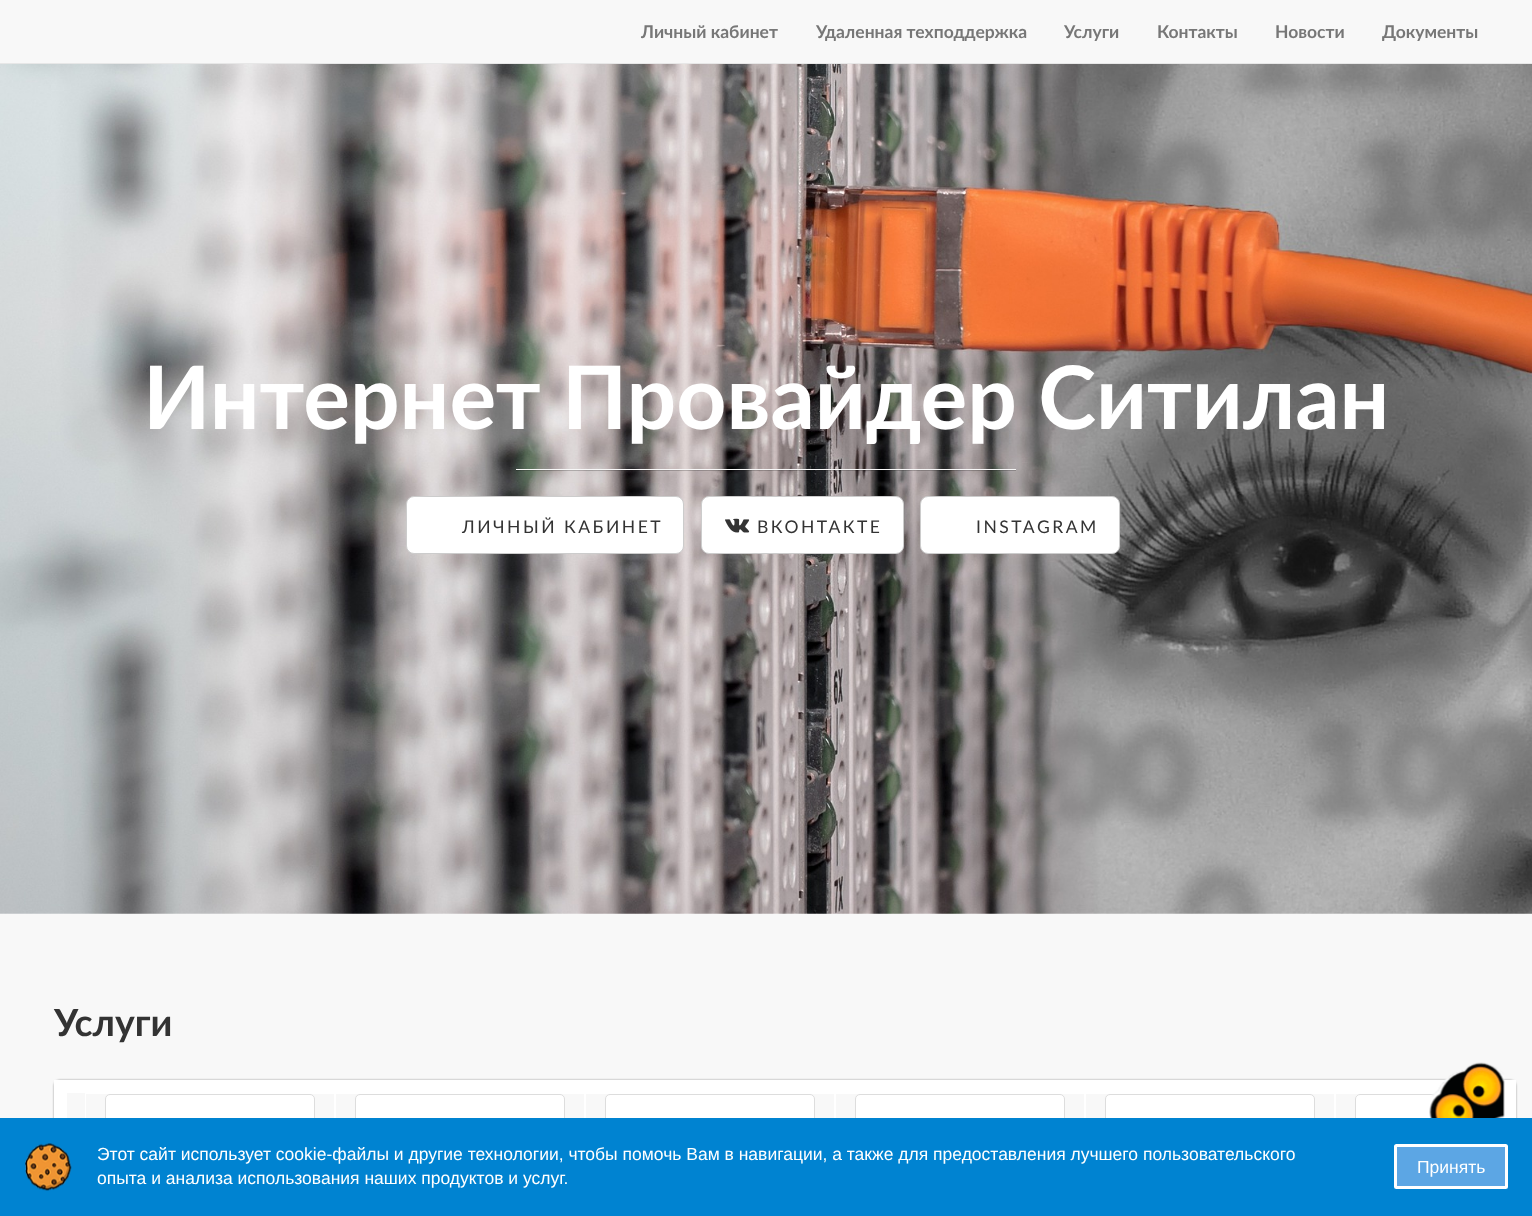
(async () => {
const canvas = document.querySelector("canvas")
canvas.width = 1532
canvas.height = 1216
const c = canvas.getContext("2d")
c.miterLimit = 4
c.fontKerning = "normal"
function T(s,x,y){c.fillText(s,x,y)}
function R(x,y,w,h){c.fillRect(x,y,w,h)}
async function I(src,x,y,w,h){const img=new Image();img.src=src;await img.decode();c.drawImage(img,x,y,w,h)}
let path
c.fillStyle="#fff"
R(0,0,1532,1216)
c.fillStyle="#f8f8f8"
R(0,0,1532,63)
c.fillStyle="#e7e7e7"
R(0,63,1532,1)
c.font="bold 17.5px Lato"
c.fillStyle="#777"
T("Личный кабинет",641,38)
T("Удаленная техподдержка",816,38)
T("Услуги",1064,38)
T("Контакты",1157,38)
T("Новости",1275,38)
T("Документы",1382,38)
await I("1.png",0,64,1532,850)
c.font="bold 87.5px Lato"
c.fillStyle="#fff"
T("Интернет Провайдер Ситилан",143,429)
c.fillStyle="#f8f8f8"
R(516,469,500,1)
c.fillStyle="#00000033"
R(516,470,500,1)
c.fillStyle="#fff"
c.beginPath()
c.roundRect(406.5,496.5,277,57,7.5)
c.fill()
c.strokeStyle="#ccc"
c.stroke()
c.letterSpacing="2.5px"
c.font="17.5px Lato"
c.fillStyle="#333"
T("ЛИЧНЫЙ КАБИНЕТ",462,533)
c.fillStyle="#fff"
c.beginPath()
c.roundRect(701.5,496.5,202,57,7.5)
c.fill()
c.stroke()
await I("2.png",725,518,25,15)
c.fillStyle="#333"
T("ВКОНТАКТЕ",757,533)
c.fillStyle="#fff"
c.beginPath()
c.roundRect(920.5,496.5,199,57,7.5)
c.fill()
c.stroke()
c.fillStyle="#333"
T("INSTAGRAM",976,533)
c.fillStyle="#f8f8f8"
R(0,914,1532,204)
c.letterSpacing="0px"
c.font="bold 37.5px Lato"
c.fillStyle="#333"
T("Услуги",54,1036)
c.save()
path = new Path2D("M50 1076h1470v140h-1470zm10 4h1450c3.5 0 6 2.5 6 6v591c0 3.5-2.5 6-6 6h-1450c-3.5 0-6-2.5-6-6v-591c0-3.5 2.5-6 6-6z")
c.clip(path,"evenodd")
c.fillStyle="#999"
c.filter="blur(1px)"
c.beginPath()
c.roundRect(54,1080,1462,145,6)
c.fill()
c.filter="none"
c.restore()
c.beginPath()
c.rect(60.5,1086.5,1449,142)
c.strokeStyle="#fff"
c.lineWidth=13
c.stroke()
c.lineWidth=1
c.strokeRect(85.5,1093.5,249,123)
c.fillStyle="#fff"
c.beginPath()
c.roundRect(105.5,1094.5,209,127,4.5)
c.fill()
c.strokeStyle="#ddd"
c.stroke()
c.strokeStyle="#fff"
c.strokeRect(335.5,1093.5,249,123)
c.beginPath()
c.roundRect(355.5,1094.5,209,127,4.5)
c.fill()
c.strokeStyle="#ddd"
c.stroke()
c.strokeStyle="#fff"
c.strokeRect(585.5,1093.5,249,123)
c.beginPath()
c.roundRect(605.5,1094.5,209,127,4.5)
c.fill()
c.strokeStyle="#ddd"
c.stroke()
c.strokeStyle="#fff"
c.strokeRect(835.5,1093.5,249,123)
c.beginPath()
c.roundRect(855.5,1094.5,209,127,4.5)
c.fill()
c.strokeStyle="#ddd"
c.stroke()
c.strokeStyle="#fff"
c.strokeRect(1085.5,1093.5,249,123)
c.beginPath()
c.roundRect(1105.5,1094.5,209,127,4.5)
c.fill()
c.strokeStyle="#ddd"
c.stroke()
c.save()
c.beginPath()
c.rect(85,1093,1400,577)
c.clip()
c.strokeStyle="#fff"
c.strokeRect(1335.5,1093.5,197,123)
c.restore()
path = new Path2D("M1360 1094h125v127h-125c-3 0-5-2-5-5v-117c0-3 2-5 5-5z")
c.fill(path)
c.save()
c.beginPath()
c.rect(85,1093,1400,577)
c.clip()
c.beginPath()
c.roundRect(1355.5,1094.5,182,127,4.5)
c.stroke()
c.restore()
await I("3.png",1429,1062,76,56)
c.fillStyle="#0083d1"
R(0,1118,1532,98)
await I("4.png",25,1143,47,48)
c.font="17.5px Liberation Sans"
c.fillStyle="#fff"
T("Этот сайт использует cookie-файлы и другие технологии, чтобы помочь Вам в навигации, а также для предоставления лучшего пользовательского",97,1160)
T("опыта и анализа использования наших продуктов и услуг.",97,1184)
c.fillStyle="#5ca6e4"
c.beginPath()
c.roundRect(1395.5,1145.5,111,42,1)
c.fill()
c.strokeStyle="#fff"
c.lineWidth=3
c.stroke()
c.fillStyle="#fff"
T("Принять",1417,1173)
})()
